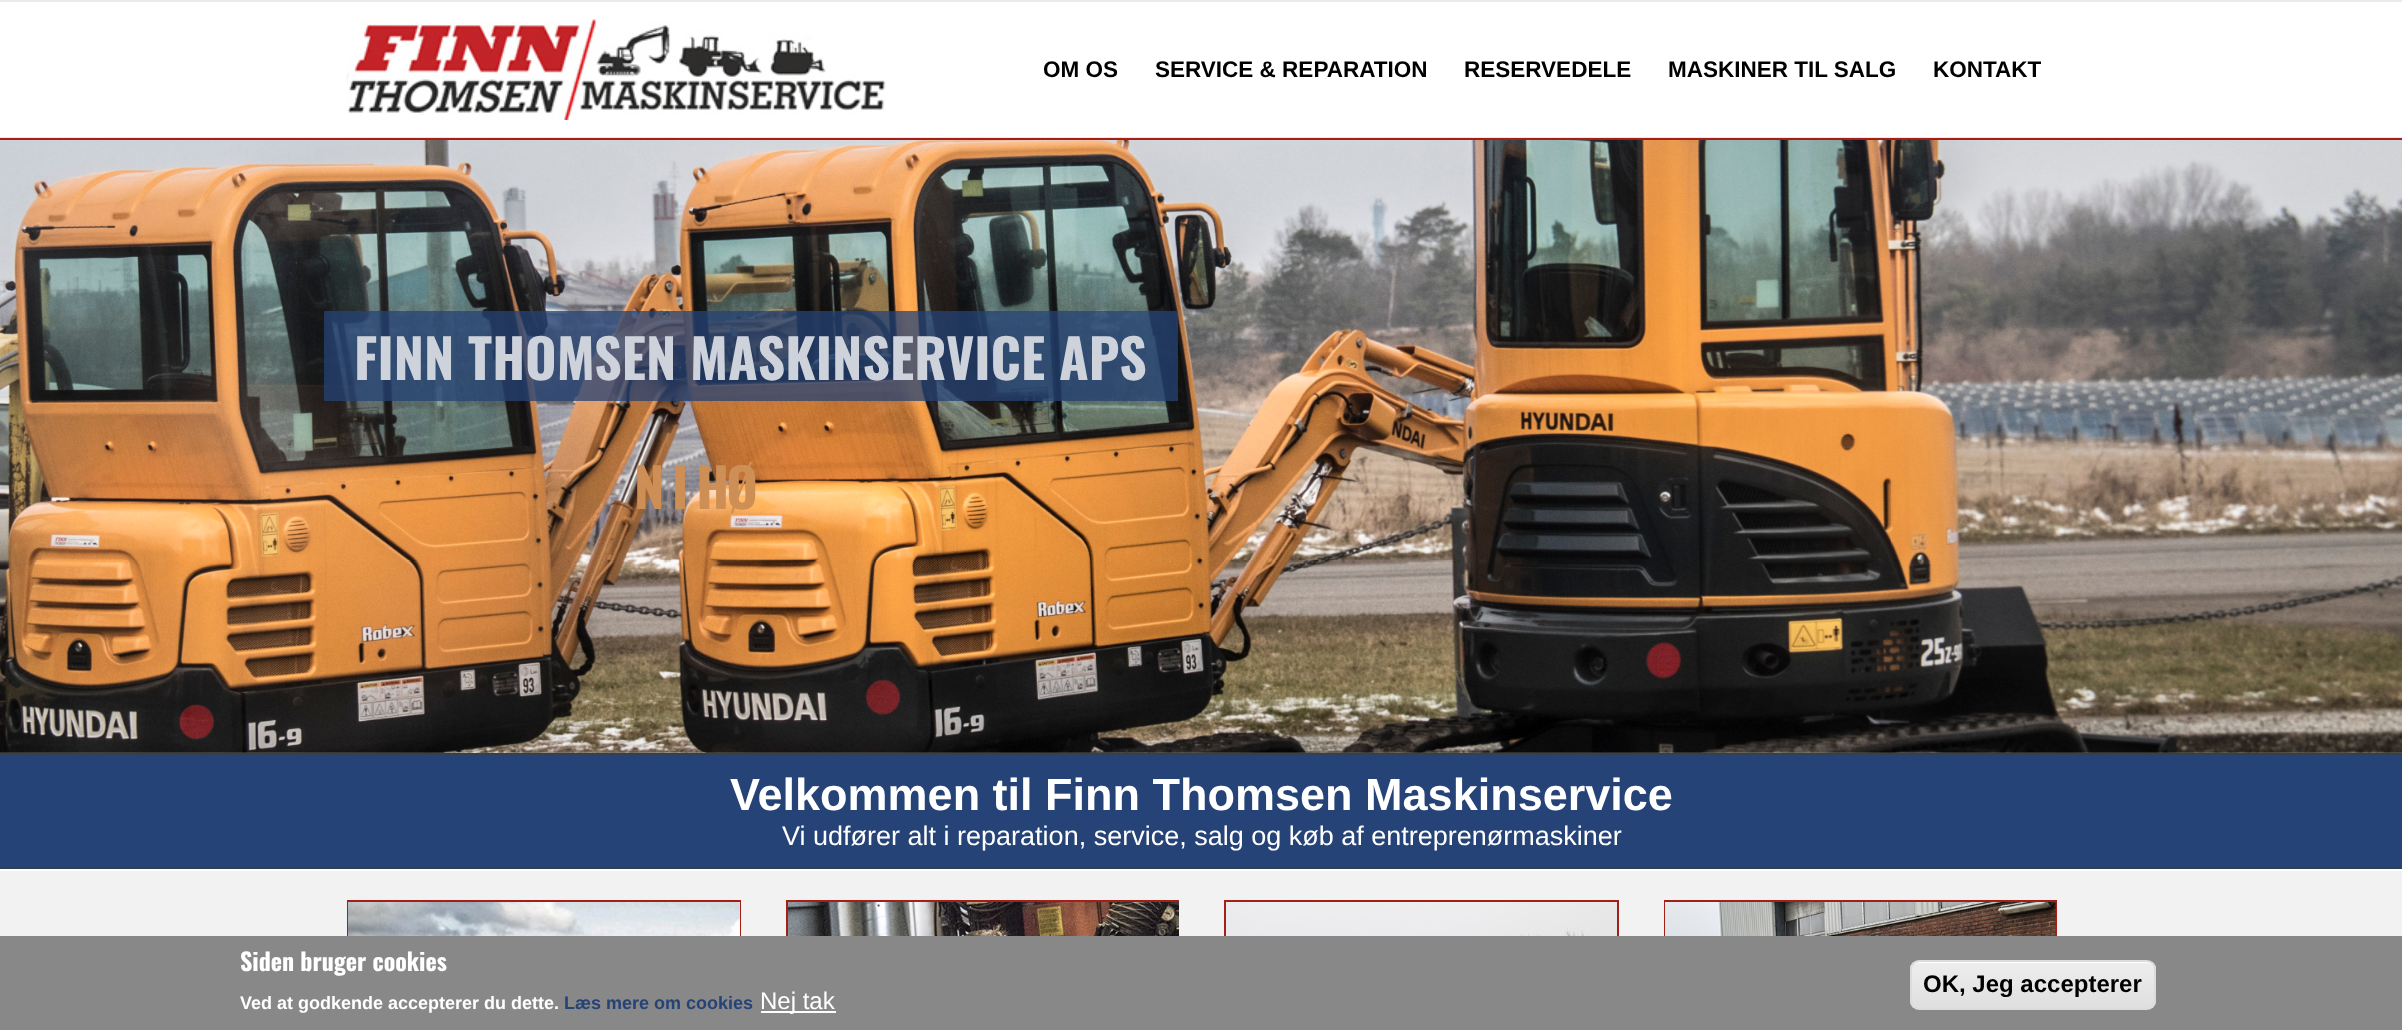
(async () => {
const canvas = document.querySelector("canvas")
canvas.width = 2402
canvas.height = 1030
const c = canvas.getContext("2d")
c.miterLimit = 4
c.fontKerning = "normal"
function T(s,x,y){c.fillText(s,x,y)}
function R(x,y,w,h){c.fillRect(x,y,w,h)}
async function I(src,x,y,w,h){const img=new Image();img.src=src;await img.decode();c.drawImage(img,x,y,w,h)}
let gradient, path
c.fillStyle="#fff"
R(0,0,2402,1030)
c.fillStyle="#eaeaea"
R(0,0,2402,2)
R(0,137,2402,1)
await I("1.png",346,19,540,101)
c.font="bold 22.5px Liberation Sans"
c.fillStyle="#000"
T("OM OS",1043,77)
T("SERVICE & REPARATION",1155,77)
T("RESERVEDELE",1464,77)
T("MASKINER TIL SALG",1668,77)
T("KONTAKT",1933,77)
c.fillStyle="#a32018"
R(0,138,2402,2)
await I("2.png",0,140,2402,613)
c.fillStyle="#254376bf"
R(324,311,854,90)
c.font="bold 54px Oswald"
c.fillStyle="#cdd2db"
T("FINN THOMSEN MASKINSERVICE APS",354,380)
c.letterSpacing="-3px"
c.fillStyle="#cd8f55"
T("N I HØ",634,509)
c.fillStyle="#254376"
R(0,755,2402,112)
c.fillStyle="#33404e"
R(0,753,2402,2)
R(0,867,2402,2)
c.letterSpacing="0px"
c.font="bold 45px Liberation Sans"
c.fillStyle="#fff"
T("Velkommen til Finn Thomsen Maskinservice",730,810)
c.font="27px Liberation Sans"
T("Vi udfører alt i reparation, service, salg og køb af entreprenørmaskiner",782,845)
c.fillStyle="#f2f2f2"
R(0,871,2402,65)
c.strokeStyle="#a32018"
c.lineWidth=2
c.strokeRect(348,901,392,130)
await I("3.png",348,902,392,34)
c.strokeRect(787,901,391,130)
await I("4.png",788,902,391,34)
c.strokeRect(1225,901,393,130)
await I("5.png",1226,902,391,34)
c.strokeRect(1665,901,391,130)
await I("6.png",1665,902,391,34)
c.fillStyle="#888"
R(0,936,2402,94)
c.font="bold 24px Oswald"
c.fillStyle="#fff"
T("Siden bruger cookies",240,971)
c.font="bold 18px Liberation Sans"
T("Ved at godkende accepterer du dette.",240,1009)
c.fillStyle="#254376"
T("Læs mere om cookies",564,1009)
c.fillStyle="#fff"
R(761,1011,75,2)
c.font="24px Liberation Sans"
T("Nej tak",760,1009)
c.save()
c.beginPath()
c.roundRect(1910,960,246,50,9)
c.clip()
gradient = c.createLinearGradient(2033,962,2033,1008)
gradient.addColorStop(.05,"#ededed")
gradient.addColorStop(1,"#dfdfdf")
c.fillStyle = gradient
R(1910,962,246,46)
c.restore()
path = new Path2D("M1918 963h228c5 0 8 3 8 7c0-4-4-8-8-8h-227c-4 0-8 4-8 8c0-4 3-7 7-7z")
c.fill(path)
c.beginPath()
c.roundRect(1911,961,244,48,8)
c.strokeStyle="#dcdcdc"
c.stroke()
c.font="bold 24px Liberation Sans"
c.fillStyle="#000"
T("OK, Jeg accepterer",1923,992)
})()
